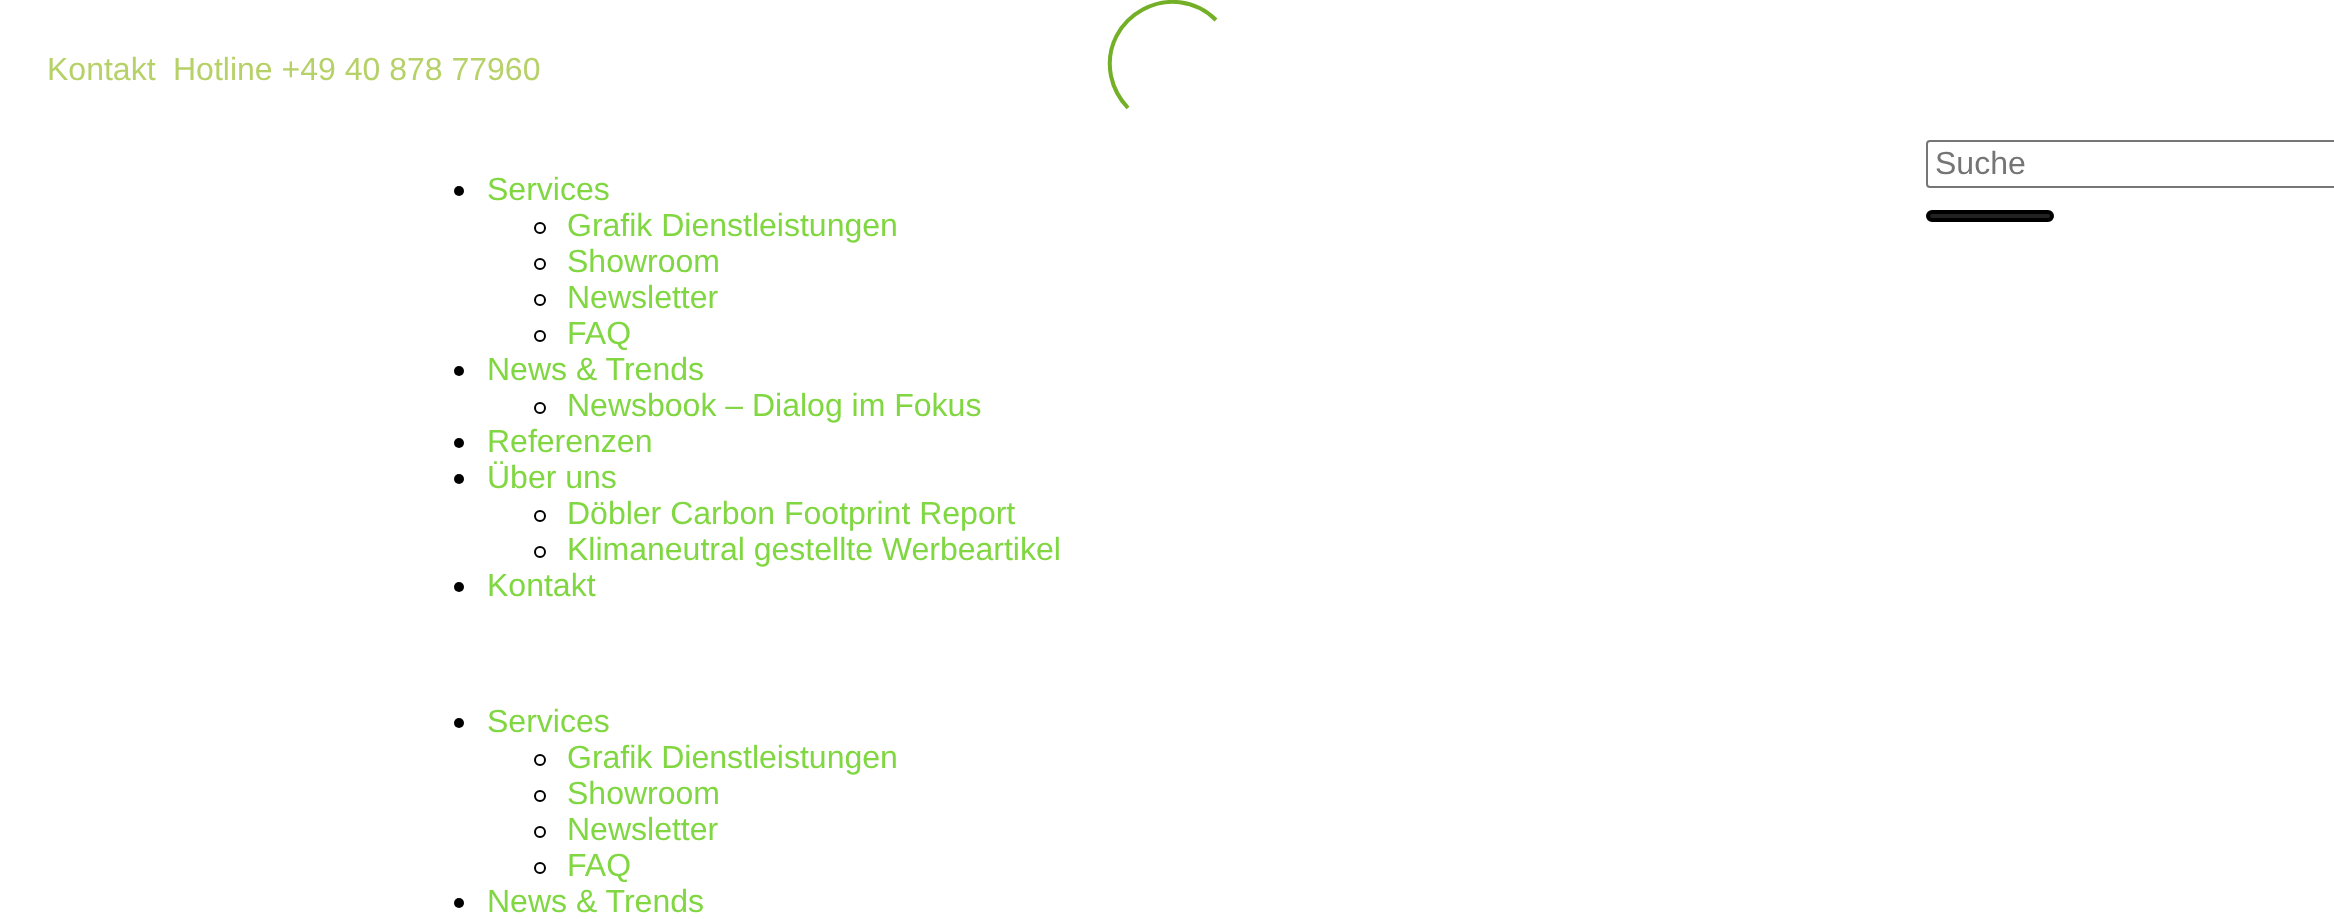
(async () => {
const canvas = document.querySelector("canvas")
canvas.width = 2334
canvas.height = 919
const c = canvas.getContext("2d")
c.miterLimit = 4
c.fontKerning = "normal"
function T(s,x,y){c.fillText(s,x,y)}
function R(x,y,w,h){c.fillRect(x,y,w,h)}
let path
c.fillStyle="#fff"
R(0,0,2334,919)
path = new Path2D("M1128 108c-8.5-9-14.5-20-17-32c-11.5-59.5 61.5-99 105-56")
c.strokeStyle="#73af27"
c.lineWidth=4
c.stroke(path)
c.font="32px Liberation Sans"
c.fillStyle="#b7d169"
T("Kontakt",47,80)
T("Hotline +49 40 878 77960",173,80)
c.beginPath()
c.roundRect(1927,141,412,46,3)
c.strokeStyle="#767676"
c.lineWidth=2
c.stroke()
c.fillStyle="#757575"
T("Suche",1935,174)
c.fillStyle="#222"
c.beginPath()
c.roundRect(1928,212,124,8,4)
c.fill()
c.strokeStyle="#000"
c.lineWidth=4
c.stroke()
c.fillStyle="#000"
c.beginPath()
c.arc(459,191,5,0,7)
c.fill()
c.fillStyle="#81d742"
T("Services",487,200)
c.beginPath()
c.arc(540,228,5,0,7)
c.lineWidth=2
c.stroke()
T("Grafik Dienstleistungen",567,236)
c.beginPath()
c.arc(540,264,5,0,7)
c.stroke()
T("Showroom",567,272)
c.beginPath()
c.arc(540,300,5,0,7)
c.stroke()
T("Newsletter",567,308)
c.beginPath()
c.arc(540,336,5,0,7)
c.stroke()
T("FAQ",567,344)
c.fillStyle="#000"
c.beginPath()
c.arc(459,371,5,0,7)
c.fill()
c.fillStyle="#81d742"
T("News & Trends",487,380)
c.beginPath()
c.arc(540,408,5,0,7)
c.stroke()
T("Newsbook – Dialog im Fokus",567,416)
c.fillStyle="#000"
c.beginPath()
c.arc(459,443,5,0,7)
c.fill()
c.fillStyle="#81d742"
T("Referenzen",487,452)
c.fillStyle="#000"
c.beginPath()
c.arc(459,479,5,0,7)
c.fill()
c.fillStyle="#81d742"
T("Über uns",487,488)
c.beginPath()
c.arc(540,516,5,0,7)
c.stroke()
T("Döbler Carbon Footprint Report",567,524)
c.beginPath()
c.arc(540,552,5,0,7)
c.stroke()
T("Klimaneutral gestellte Werbeartikel",567,560)
c.fillStyle="#000"
c.beginPath()
c.arc(459,587,5,0,7)
c.fill()
c.fillStyle="#81d742"
T("Kontakt",487,596)
c.fillStyle="#000"
c.beginPath()
c.arc(459,723,5,0,7)
c.fill()
c.fillStyle="#81d742"
T("Services",487,732)
c.beginPath()
c.arc(540,760,5,0,7)
c.stroke()
T("Grafik Dienstleistungen",567,768)
c.beginPath()
c.arc(540,796,5,0,7)
c.stroke()
T("Showroom",567,804)
c.beginPath()
c.arc(540,832,5,0,7)
c.stroke()
T("Newsletter",567,840)
c.beginPath()
c.arc(540,868,5,0,7)
c.stroke()
T("FAQ",567,876)
c.fillStyle="#000"
c.beginPath()
c.arc(459,903,5,0,7)
c.fill()
c.fillStyle="#81d742"
T("News & Trends",487,912)
})()
